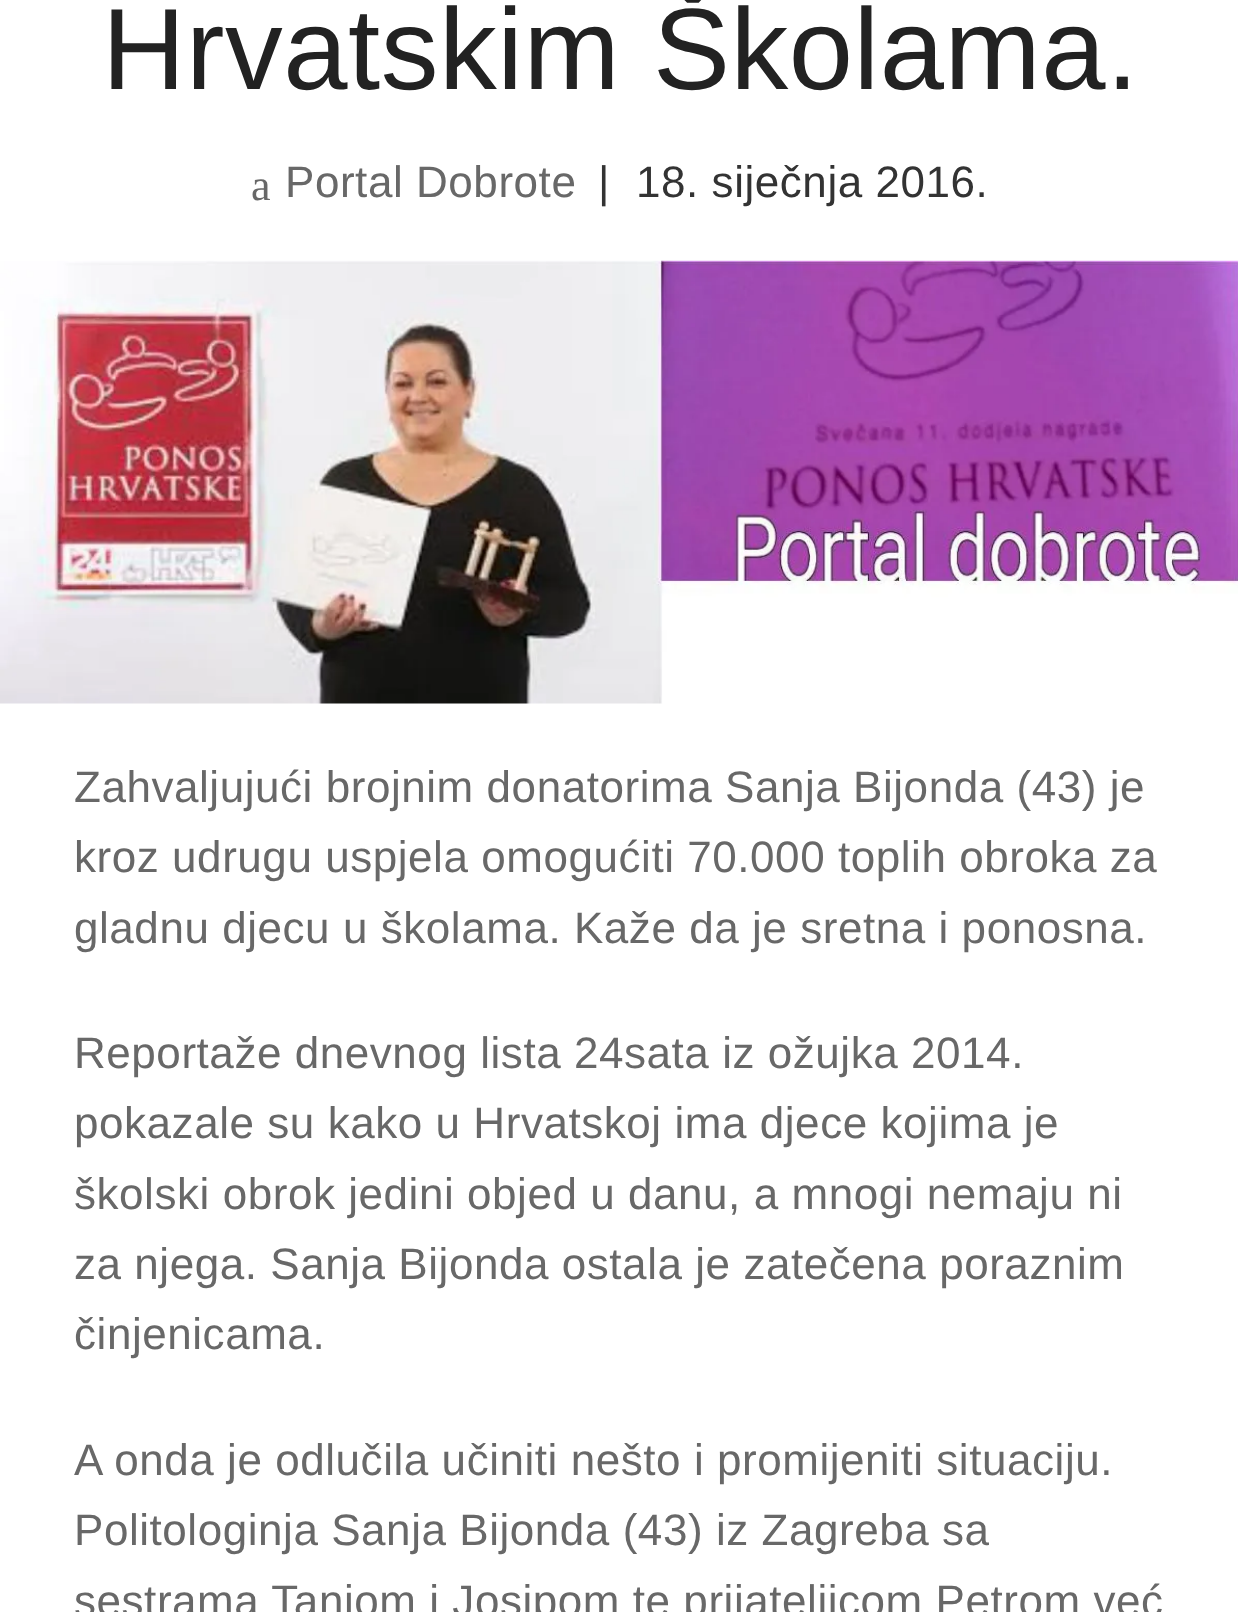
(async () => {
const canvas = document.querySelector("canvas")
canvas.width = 1238
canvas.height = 1612
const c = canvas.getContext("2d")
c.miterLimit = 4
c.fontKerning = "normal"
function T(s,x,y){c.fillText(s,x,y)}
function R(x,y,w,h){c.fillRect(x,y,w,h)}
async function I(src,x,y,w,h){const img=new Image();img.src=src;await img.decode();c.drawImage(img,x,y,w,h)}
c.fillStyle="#fff"
R(0,0,1238,1612)
c.letterSpacing="0.55px"
c.font="115.5px Liberation Sans"
c.fillStyle="#222"
T("Hrvatskim Školama.",102,89)
c.font="44px Liberation Serif"
c.fillStyle="#686868"
T("a",251,200)
c.font="44px Liberation Sans"
T("Portal Dobrote",285,197)
c.fillStyle="#333"
T("|",598,197)
T("18. siječnja 2016.",636,197)
await I("1.png",0,260,1238,444)
c.fillStyle="#686868"
T("Zahvaljujući brojnim donatorima Sanja Bijonda (43) je",74,802)
T("kroz udrugu uspjela omogućiti 70.000 toplih obroka za",74,872)
T("gladnu djecu u školama. Kaže da je sretna i ponosna.",74,943)
T("Reportaže dnevnog lista 24sata iz ožujka 2014.",74,1068)
T("pokazale su kako u Hrvatskoj ima djece kojima je",74,1138)
T("školski obrok jedini objed u danu, a mnogi nemaju ni",74,1209)
T("za njega. Sanja Bijonda ostala je zatečena poraznim",74,1279)
T("činjenicama.",74,1349)
T("A onda je odlučila učiniti nešto i promijeniti situaciju.",74,1475)
T("Politologinja Sanja Bijonda (43) iz Zagreba sa",74,1545)
T("sestrama Tanjom i Josipom te prijateljicom Petrom već",74,1616)
})()
